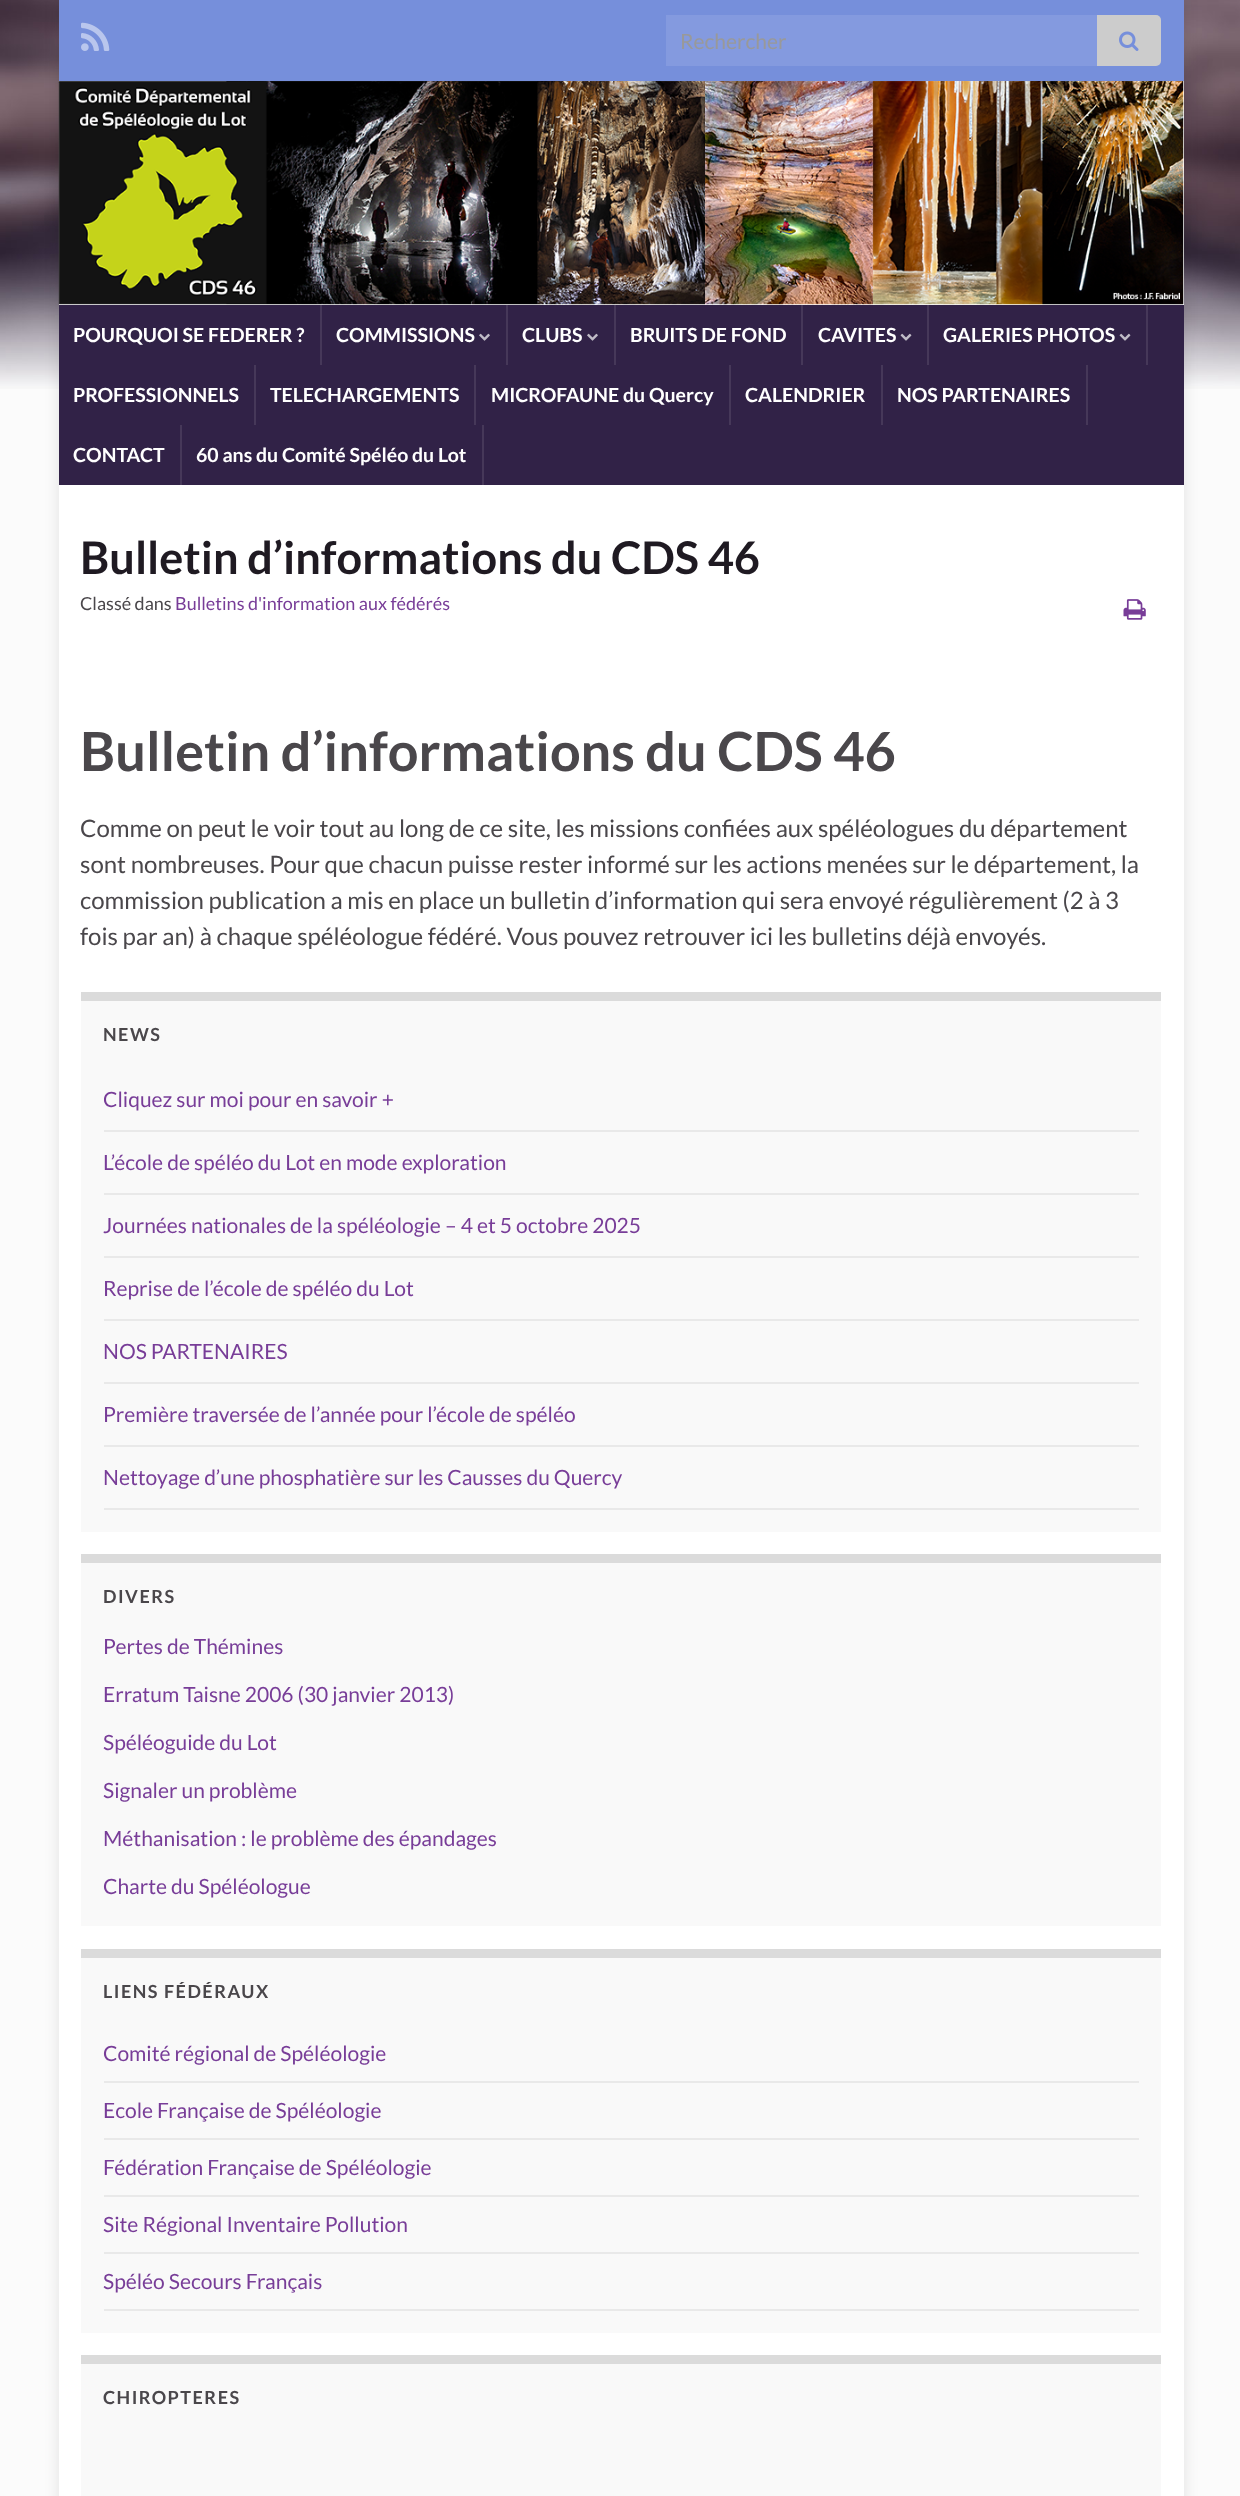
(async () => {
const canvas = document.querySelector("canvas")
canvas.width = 1240
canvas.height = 2496
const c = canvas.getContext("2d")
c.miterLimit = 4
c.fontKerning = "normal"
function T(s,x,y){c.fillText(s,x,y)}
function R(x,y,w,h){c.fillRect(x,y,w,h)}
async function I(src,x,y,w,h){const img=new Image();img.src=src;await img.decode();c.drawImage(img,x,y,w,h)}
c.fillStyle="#fbfbfb"
R(0,0,1240,2496)
await I("1.png",0,0,1240,389)
c.fillStyle="#0000001a"
c.filter="blur(7.5px)"
c.beginPath()
c.rect(59,0,1125,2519)
c.fill()
c.filter="none"
c.fillStyle="#768fdb"
R(59,0,1125,81)
await I("2.png",81,22,29,29)
c.fillStyle="#849adf"
R(666,15,431,51)
c.font="21px Lato"
c.fillStyle="#999"
T("Rechercher",680,49)
c.fillStyle="#ccc"
c.beginPath()
c.roundRect(1097,15,64,51,[0,5,5,0])
c.fill()
await I("3.png",1119,31,20,20)
c.fillStyle="#fff"
R(59,81,1125,224)
await I("4.png",58,81,1126,224)
c.fillStyle="#312247"
R(59,305,1125,180)
c.fillStyle="#463859"
R(320,305,2,60)
c.font="bold 19.5px Lato"
c.fillStyle="#fff"
T("POURQUOI SE FEDERER ?",73,342)
c.fillStyle="#463859"
R(506,305,2,60)
c.fillStyle="#fff"
T("COMMISSIONS",336,342)
await I("5.png",479,333,11,8)
c.fillStyle="#463859"
R(614,305,2,60)
c.fillStyle="#fff"
T("CLUBS",522,342)
await I("5.png",587,333,11,8)
c.fillStyle="#463859"
R(801,305,2,60)
c.fillStyle="#fff"
T("BRUITS DE FOND",630,342)
c.fillStyle="#463859"
R(927,305,2,60)
c.fillStyle="#fff"
T("CAVITES",818,342)
await I("6.png",900,333,12,8)
c.fillStyle="#463859"
R(1146,305,2,60)
c.fillStyle="#fff"
T("GALERIES PHOTOS",943,342)
await I("6.png",1119,333,12,8)
c.fillStyle="#463859"
R(254,365,2,60)
c.fillStyle="#fff"
T("PROFESSIONNELS",73,402)
c.fillStyle="#463859"
R(474,365,2,60)
c.fillStyle="#fff"
T("TELECHARGEMENTS",270,402)
c.fillStyle="#463859"
R(729,365,2,60)
c.fillStyle="#fff"
T("MICROFAUNE du Quercy",491,402)
c.fillStyle="#463859"
R(881,365,2,60)
c.fillStyle="#fff"
T("CALENDRIER",745,402)
c.fillStyle="#463859"
R(1086,365,2,60)
c.fillStyle="#fff"
T("NOS PARTENAIRES",897,402)
c.fillStyle="#463859"
R(180,425,2,60)
c.fillStyle="#fff"
T("CONTACT",73,462)
c.fillStyle="#463859"
R(482,425,2,60)
c.fillStyle="#fff"
T("60 ans du Comité Spéléo du Lot",196,462)
R(59,485,1125,2011)
c.font="bold 45px Lato"
c.fillStyle="#1f1a22"
T("Bulletin d’informations du CDS 46",80,574)
c.font="18px Lato"
c.fillStyle="#4a474b"
T("Classé dans",80,610)
c.fillStyle="#783d98"
T("Bulletins d'information aux fédérés",175,610)
await I("7.png",1123,599,23,21)
c.font="bold 54px Lato"
c.fillStyle="#4a474b"
T("Bulletin d’informations du CDS 46",80,771)
c.font="24px Lato"
T("Comme on peut le voir tout au long de ce site, les missions confiées aux spéléologues du département",80,837)
T("sont nombreuses. Pour que chacun puisse rester informé sur les actions menées sur le département, la",80,873)
T("commission publication a mis en place un bulletin d’information qui sera envoyé régulièrement (2 à 3",80,909)
T("fois par an) à chaque spéléologue fédéré. Vous pouvez retrouver ici les bulletins déjà envoyés.",80,945)
c.fillStyle="#f9f9f9"
R(81,1001,1080,531)
c.fillStyle="#dbdbdb"
R(81,992,1080,9)
c.letterSpacing="1.5px"
c.font="bold 18px Lato"
c.fillStyle="#4a474b"
T("NEWS",103,1041)
c.fillStyle="#e9e9e9"
R(104,1130,1035,2)
c.save()
c.beginPath()
c.rect(104,1068,1035,62)
c.clip()
c.letterSpacing="0px"
c.font="21px Lato"
c.fillStyle="#783d98"
T("Cliquez sur moi pour en savoir +",103,1107)
c.restore()
R(104,1193,1035,2)
c.letterSpacing="0px"
c.font="21px Lato"
c.fillStyle="#783d98"
T("L’école de spéléo du Lot en mode exploration",103,1170)
c.fillStyle="#e9e9e9"
R(104,1256,1035,2)
c.fillStyle="#783d98"
T("Journées nationales de la spéléologie – 4 et 5 octobre 2025",103,1233)
c.fillStyle="#e9e9e9"
R(104,1319,1035,2)
c.fillStyle="#783d98"
T("Reprise de l’école de spéléo du Lot",103,1296)
c.fillStyle="#e9e9e9"
R(104,1382,1035,2)
c.fillStyle="#783d98"
T("NOS PARTENAIRES",103,1359)
c.fillStyle="#e9e9e9"
R(104,1445,1035,2)
c.fillStyle="#783d98"
T("Première traversée de l’année pour l’école de spéléo",103,1422)
c.fillStyle="#e9e9e9"
R(104,1508,1035,2)
c.fillStyle="#783d98"
T("Nettoyage d’une phosphatière sur les Causses du Quercy",103,1485)
c.fillStyle="#f9f9f9"
R(81,1563,1080,363)
c.fillStyle="#dbdbdb"
R(81,1554,1080,9)
c.letterSpacing="1.5px"
c.font="bold 18px Lato"
c.fillStyle="#4a474b"
T("DIVERS",103,1603)
c.letterSpacing="0px"
c.font="21px Lato"
c.fillStyle="#783d98"
T("Pertes de Thémines",103,1654)
T("Erratum Taisne 2006 (30 janvier 2013)",103,1702)
T("Spéléoguide du Lot",103,1750)
T("Signaler un problème",103,1798)
T("Méthanisation : le problème des épandages",103,1846)
T("Charte du Spéléologue",103,1894)
c.fillStyle="#f9f9f9"
R(81,1958,1080,375)
c.fillStyle="#dbdbdb"
R(81,1949,1080,9)
c.letterSpacing="1.5px"
c.font="bold 18px Lato"
c.fillStyle="#4a474b"
T("LIENS FÉDÉRAUX",103,1998)
c.fillStyle="#e9e9e9"
R(104,2081,1035,2)
c.letterSpacing="0px"
c.font="21px Lato"
c.fillStyle="#783d98"
T("Comité régional de Spéléologie",103,2061)
c.fillStyle="#e9e9e9"
R(104,2138,1035,2)
c.fillStyle="#783d98"
T("Ecole Française de Spéléologie",103,2118)
c.fillStyle="#e9e9e9"
R(104,2195,1035,2)
c.fillStyle="#783d98"
T("Fédération Française de Spéléologie",103,2175)
c.fillStyle="#e9e9e9"
R(104,2252,1035,2)
c.fillStyle="#783d98"
T("Site Régional Inventaire Pollution",103,2232)
c.fillStyle="#e9e9e9"
R(104,2309,1035,2)
c.fillStyle="#783d98"
T("Spéléo Secours Français",103,2289)
c.fillStyle="#f9f9f9"
R(81,2364,1080,132)
c.fillStyle="#dbdbdb"
R(81,2355,1080,9)
c.letterSpacing="1.5px"
c.font="bold 18px Lato"
c.fillStyle="#4a474b"
T("CHIROPTERES",103,2404)
})()
